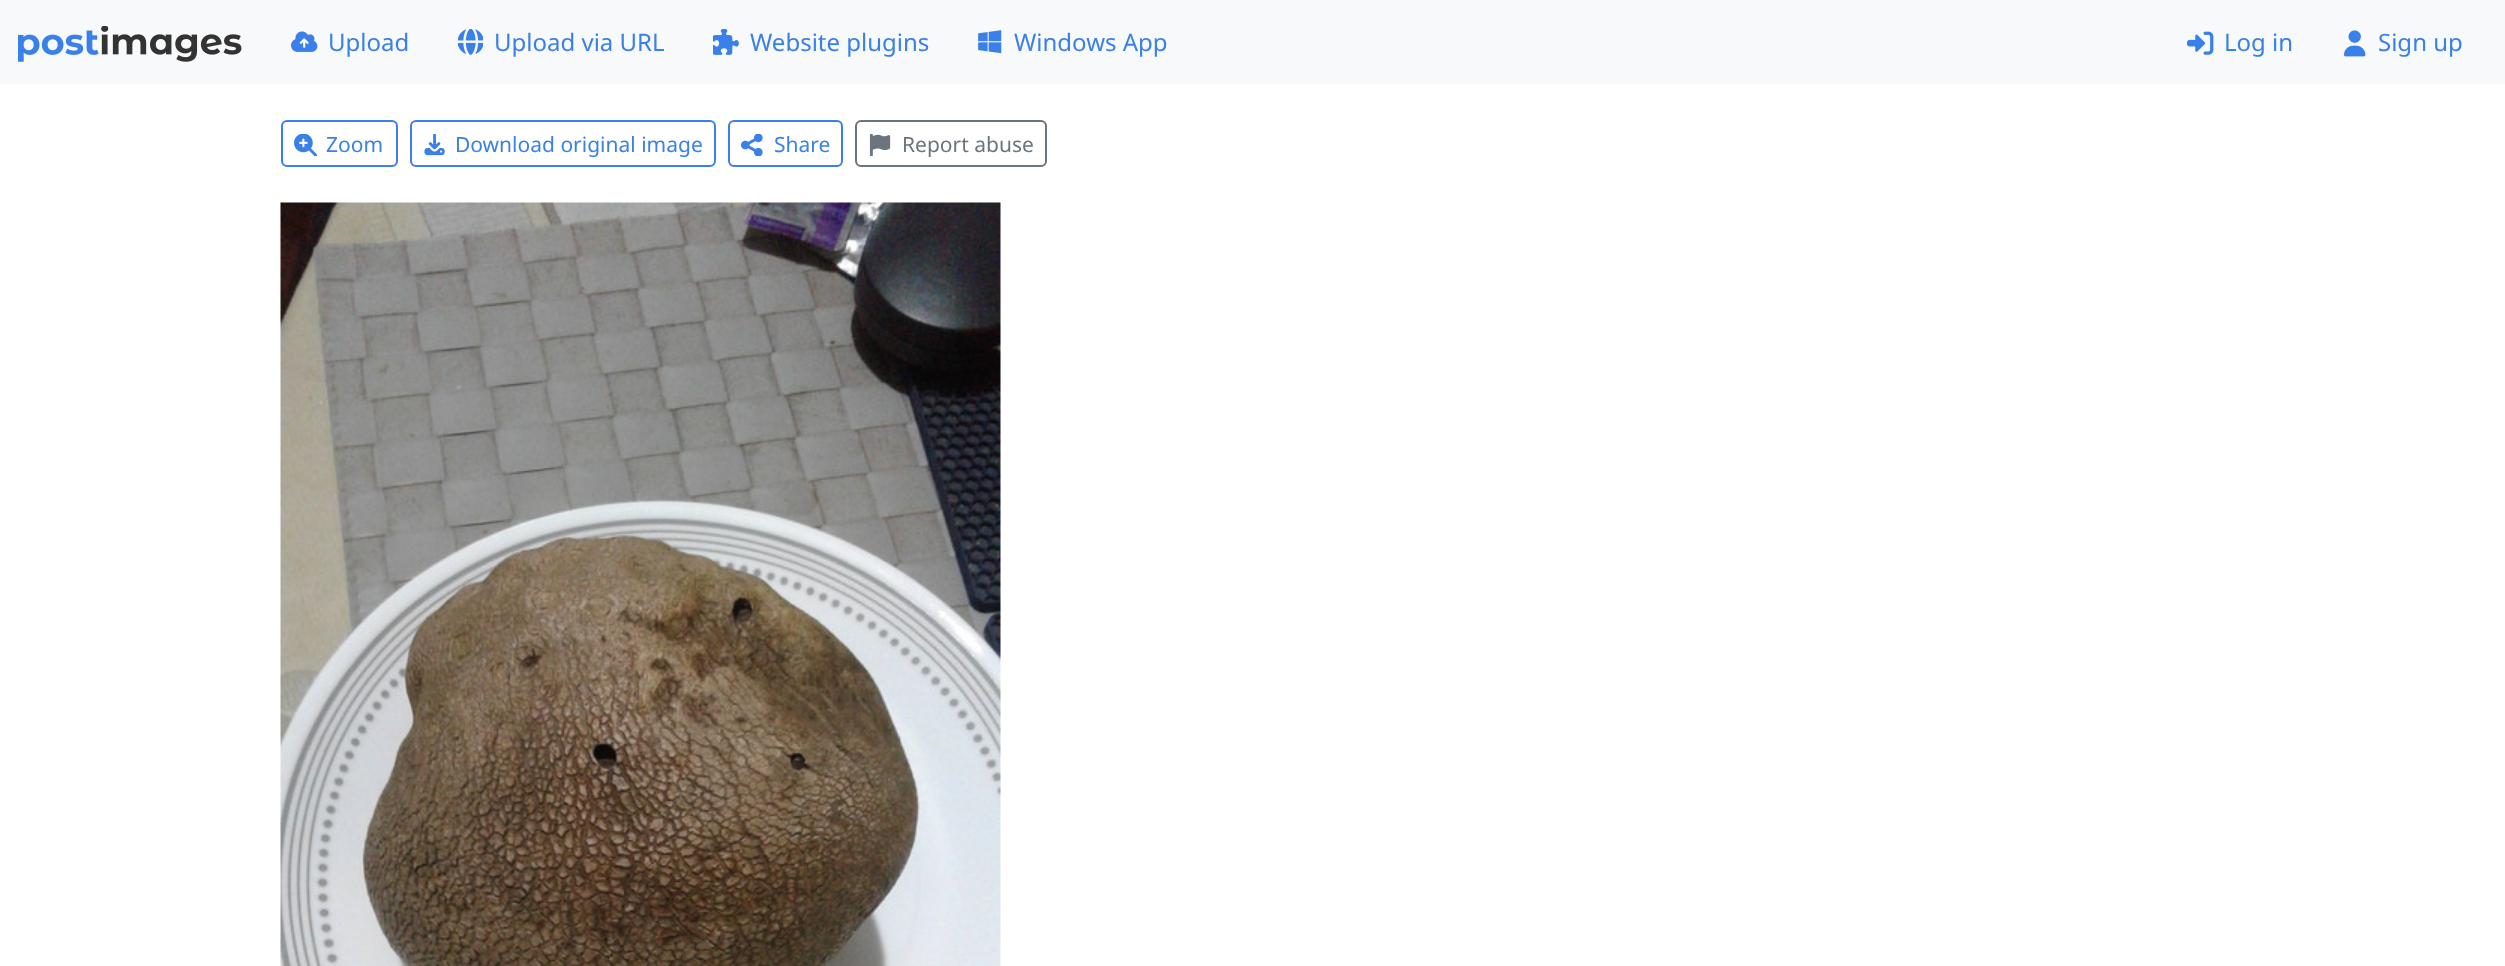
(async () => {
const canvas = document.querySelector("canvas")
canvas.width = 2505
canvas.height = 966
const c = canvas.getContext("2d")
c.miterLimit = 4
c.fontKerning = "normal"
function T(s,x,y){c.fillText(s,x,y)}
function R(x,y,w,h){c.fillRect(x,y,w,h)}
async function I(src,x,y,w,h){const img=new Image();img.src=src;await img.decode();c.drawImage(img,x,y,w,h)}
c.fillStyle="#fff"
R(0,0,2505,966)
c.fillStyle="#f8f9fa"
R(0,0,2505,84)
await I("1.png",18,26,224,36)
await I("2.png",291,31,27,21)
c.font="24px Noto Sans"
c.fillStyle="#3a80ea"
T("Upload",328,51)
await I("3.png",458,29,25,26)
T("Upload via URL",494,51)
await I("4.png",713,29,26,26)
T("Website plugins",750,51)
await I("5.png",978,30,24,24)
T("Windows App",1014,51)
await I("6.png",2187,31,27,24)
T("Log in",2224,51)
await I("7.png",2344,30,22,27)
T("Sign up",2378,51)
c.beginPath()
c.roundRect(282,121,115,45,5)
c.strokeStyle="#3a80ea"
c.lineWidth=2
c.stroke()
await I("8.png",294,134,23,22)
c.font="21px Noto Sans"
T("Zoom",326,152)
c.beginPath()
c.roundRect(411,121,304,45,5)
c.stroke()
await I("9.png",424,134,21,22)
T("Download original image",455,152)
c.beginPath()
c.roundRect(729,121,113,45,5)
c.stroke()
await I("10.png",741,134,22,22)
T("Share",774,152)
c.beginPath()
c.roundRect(856,121,190,45,5)
c.strokeStyle="#6c757d"
c.stroke()
await I("11.png",869,134,22,22)
c.fillStyle="#6c757d"
T("Report abuse",902,152)
await I("12.png",280,202,721,764)
})()
